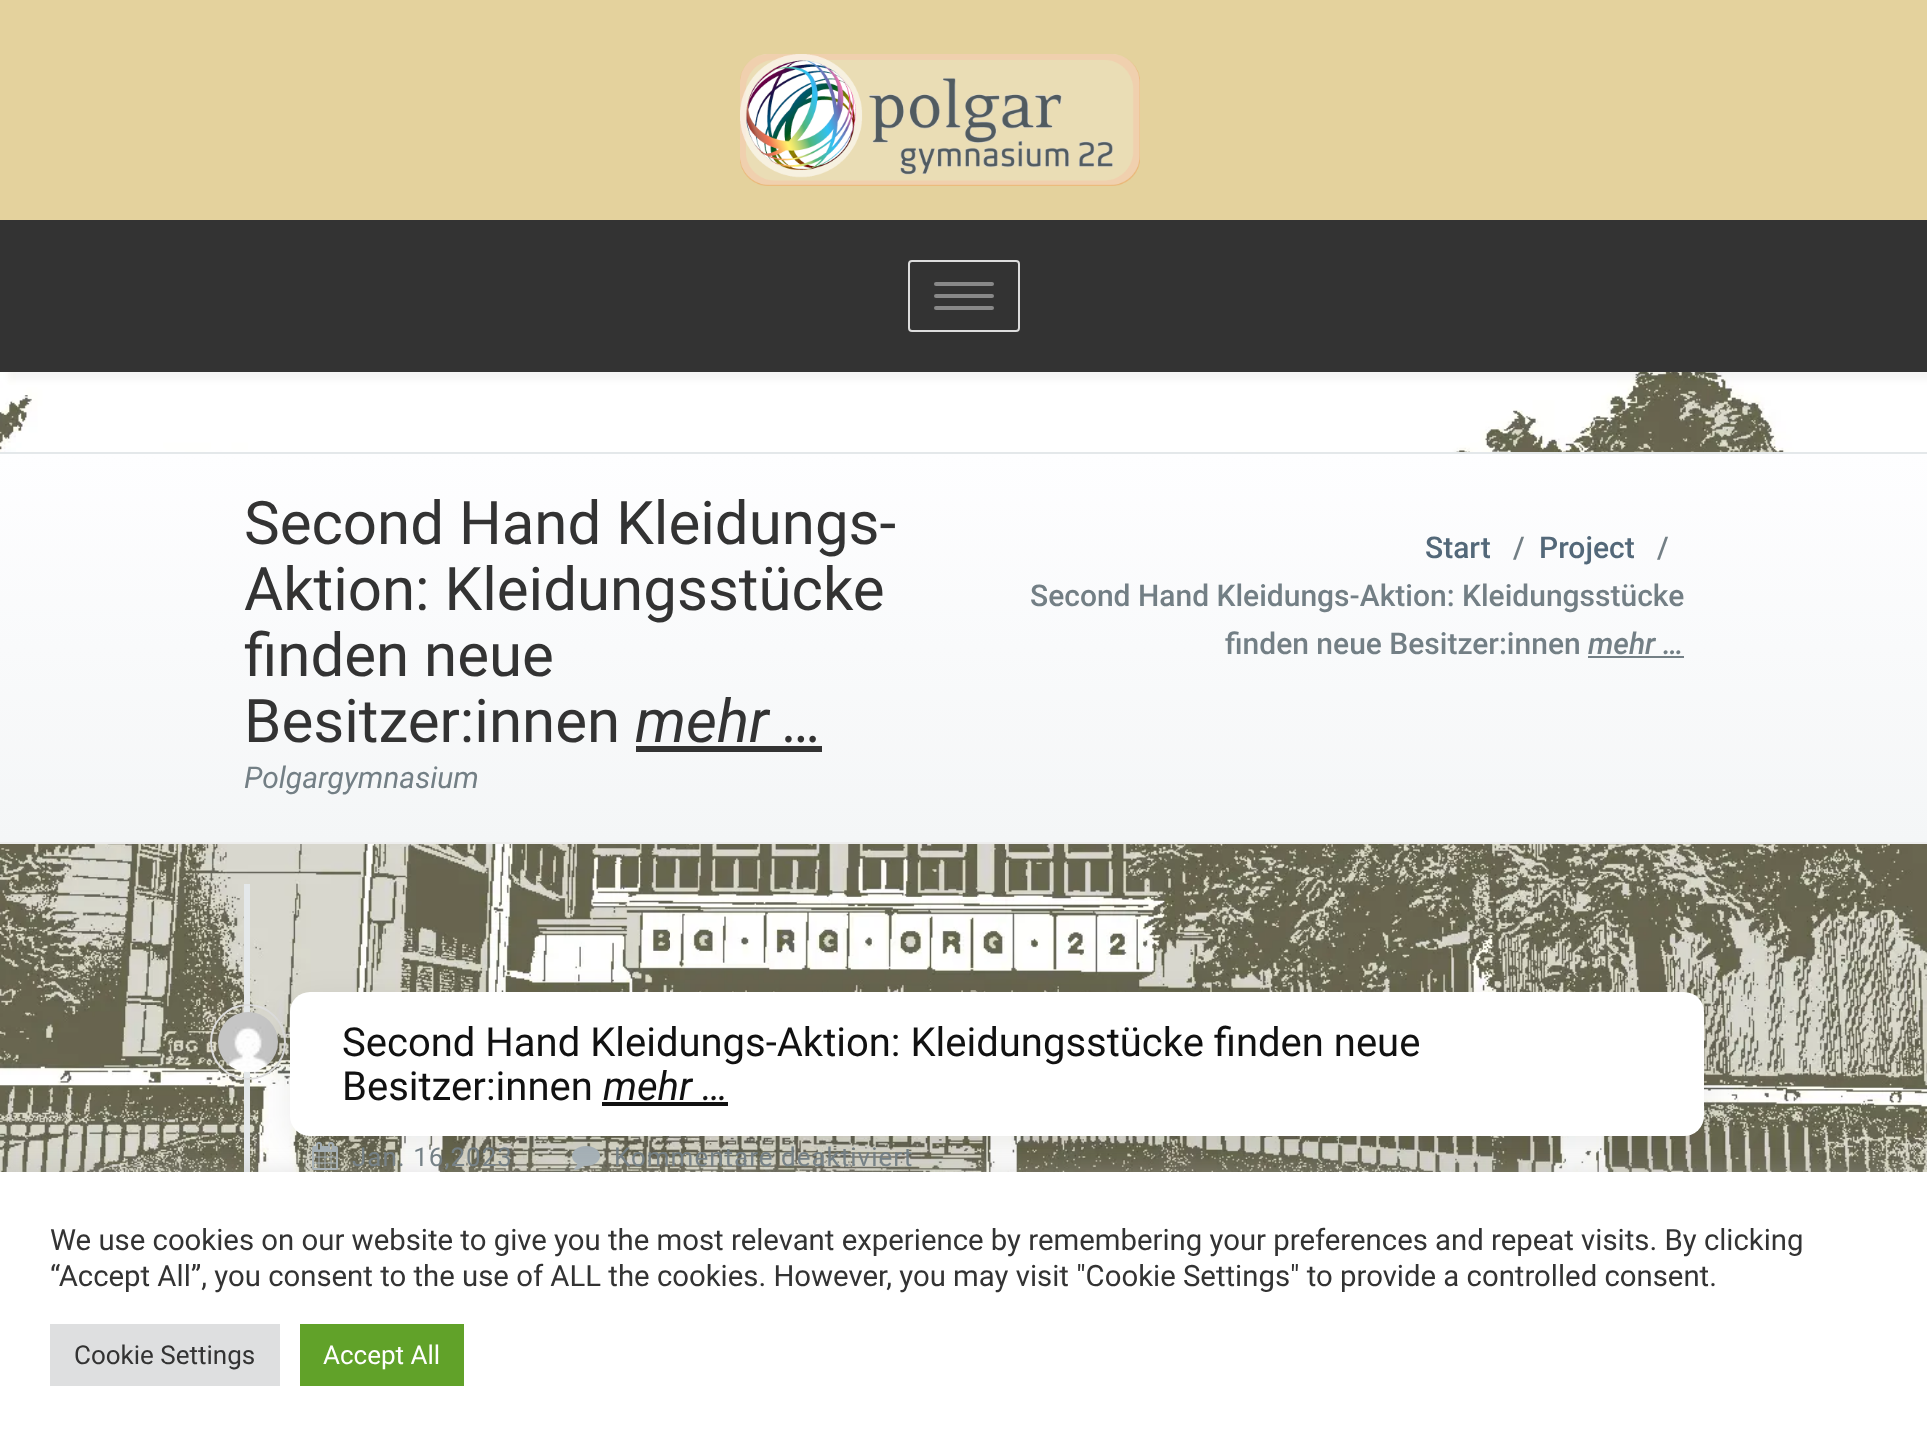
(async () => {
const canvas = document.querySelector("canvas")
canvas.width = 1927
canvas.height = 1445
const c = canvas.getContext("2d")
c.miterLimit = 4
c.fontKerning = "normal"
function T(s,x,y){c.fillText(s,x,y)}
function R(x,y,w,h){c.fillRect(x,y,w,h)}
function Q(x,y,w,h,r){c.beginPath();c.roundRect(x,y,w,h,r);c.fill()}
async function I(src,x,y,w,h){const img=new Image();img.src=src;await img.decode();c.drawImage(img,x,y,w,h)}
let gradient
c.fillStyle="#fff"
R(0,0,1927,1445)
await I("1.png",0,372,1927,800)
c.fillStyle="#e4d29d"
R(0,0,1927,220)
await I("2.png",740,54,400,132)
c.fillStyle="#0000000a"
c.filter="blur(3px)"
c.beginPath()
c.rect(8,228,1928,152)
c.fill()
c.filter="none"
c.fillStyle="#333"
R(0,220,1927,152)
c.beginPath()
c.roundRect(909,261,110,70,3)
c.strokeStyle="#ddd"
c.lineWidth=2
c.stroke()
c.fillStyle="#888"
Q(934,282,60,4,2)
Q(934,294,60,4,2)
Q(934,306,60,4,2)
gradient = c.createLinearGradient(964,454,964,842)
gradient.addColorStop(0,"#fefeff")
gradient.addColorStop(1,"#f4f6f7")
c.fillStyle = gradient
R(0,454,1927,388)
c.fillStyle="#e4e8ea"
R(0,452,1927,2)
c.fillStyle="#eee"
R(0,842,1927,2)
c.font="60px Roboto"
c.fillStyle="#333"
T("Second Hand Kleidungs-",244,544)
T("Aktion: Kleidungsstücke",244,610)
T("finden neue",244,676)
T("Besitzer:innen",244,742)
c.font="italic 60px Roboto"
T("mehr …",635,742)
R(636,746,186,6)
c.font="italic 30px Roboto"
c.fillStyle="#737f85"
T("Polgargymnasium",244,788)
c.font="500 30px Roboto"
c.fillStyle="#536879"
T("Start",1425,558)
c.fillStyle="#737f85"
T("/",1513,558)
c.fillStyle="#536879"
T("Project",1539,558)
c.fillStyle="#737f85"
T("/",1657,558)
T("Second Hand Kleidungs-Aktion: Kleidungsstücke",1030,606)
T("finden neue Besitzer:innen",1225,654)
c.font="italic 500 30px Roboto"
T("mehr …",1588,654)
R(1588,656,96,2)
c.fillStyle="#e4e8ea"
R(244,884,6,288)
c.beginPath()
c.arc(248,1042,37,0,7)
c.stroke()
await I("3.png",218,1012,60,60)
await I("4.png",312,1142,26,28)
await I("5.png",572,1146,28,24)
c.fillStyle="#00000014"
c.filter="blur(18px)"
c.beginPath()
c.roundRect(290,1004,1414,144,20)
c.fill()
c.filter="none"
c.fillStyle="#fff"
Q(290,992,1414,144,20)
c.font="40px Roboto"
c.fillStyle="#111"
T("Second Hand Kleidungs-Aktion: Kleidungsstücke finden neue",342,1056)
T("Besitzer:innen",342,1100)
c.font="italic 40px Roboto"
T("mehr …",603,1100)
R(602,1102,126,4)
c.letterSpacing="1px"
c.font="26px Roboto"
c.fillStyle="#737f85"
T("Jan. 16,2023",352,1166)
T("Kommentare deaktiviert",614,1166)
c.fillStyle="#acabab4d"
c.filter="blur(10px)"
c.beginPath()
c.rect(0,1170,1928,274)
c.fill()
c.filter="none"
c.fillStyle="#fff"
R(0,1172,1927,273)
c.letterSpacing="0px"
c.font="29.33px Roboto"
c.fillStyle="#333"
T("We use cookies on our website to give you the most relevant experience by remembering your preferences and repeat visits. By clicking",50,1250)
T("“Accept All”, you consent to the use of ALL the cookies. However, you may visit \"Cookie Settings\" to provide a controlled consent.",50,1286)
c.fillStyle="#dedfe0"
R(50,1324,230,62)
c.font="26px Roboto"
c.fillStyle="#333"
T("Cookie Settings",74,1364)
c.fillStyle="#61a229"
R(300,1324,164,62)
c.fillStyle="#fff"
T("Accept All",323,1364)
})()
